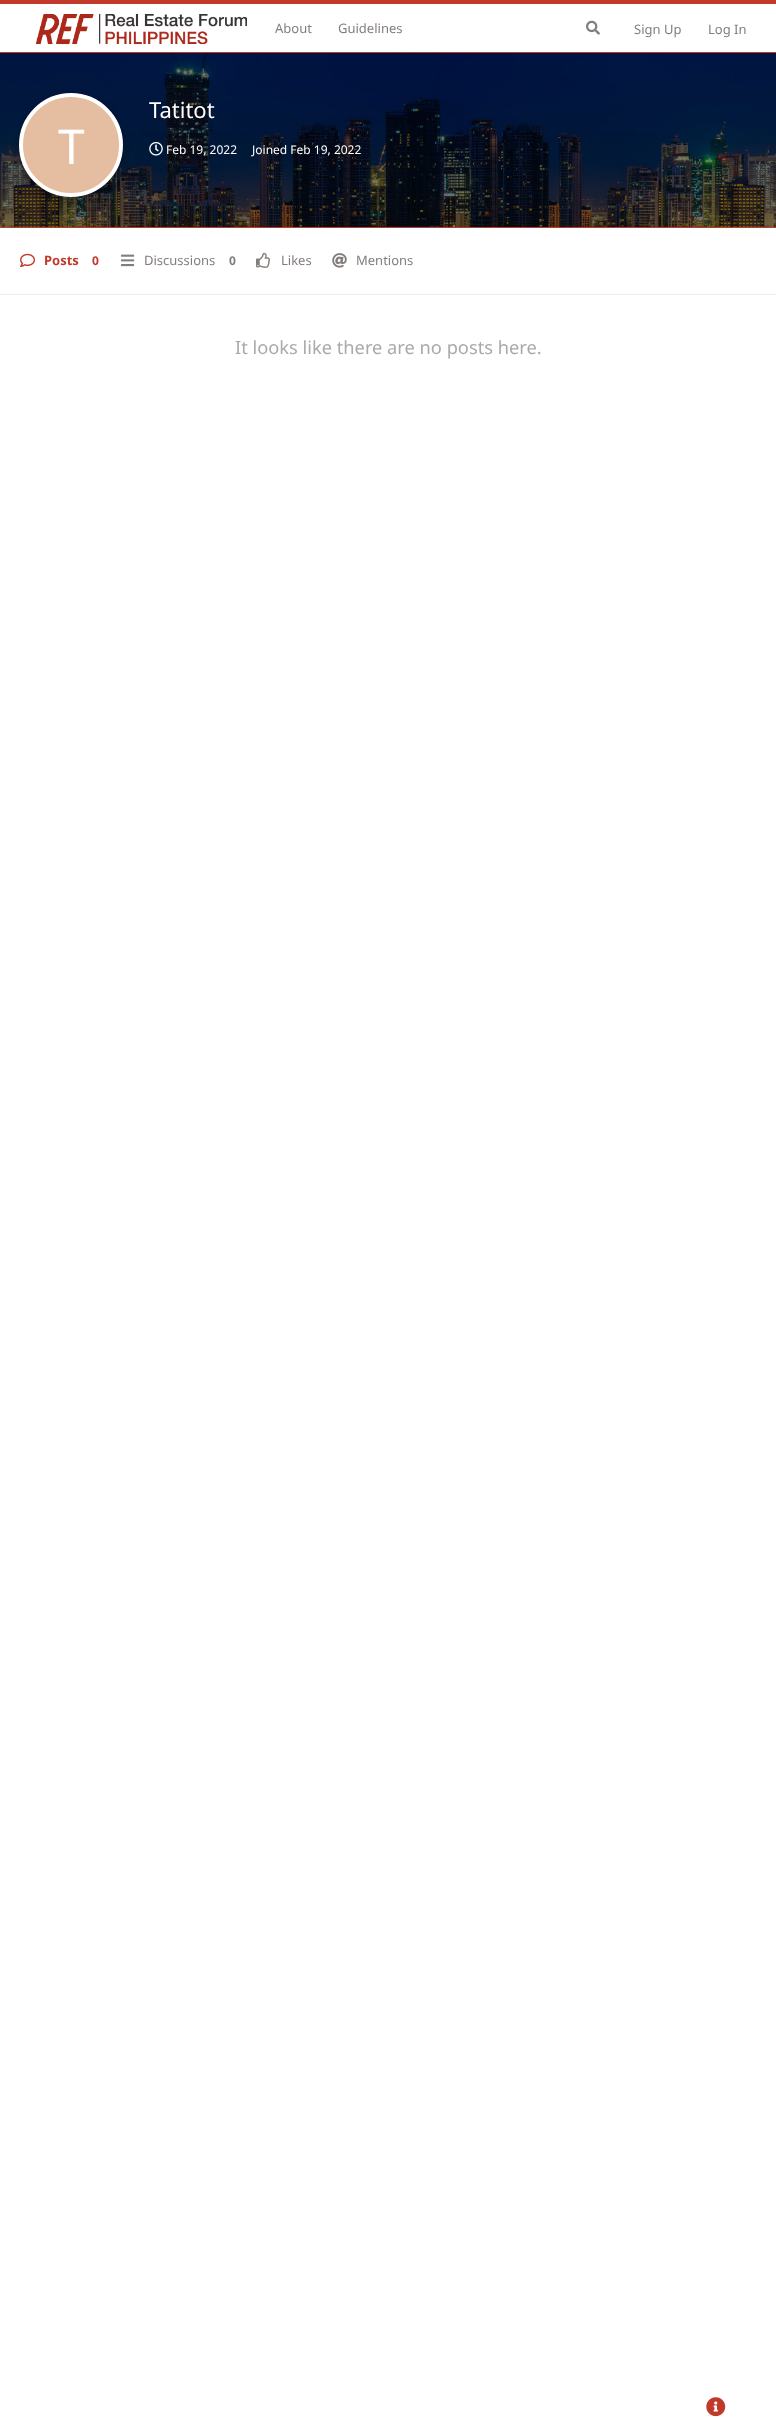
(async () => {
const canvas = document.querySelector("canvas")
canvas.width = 776
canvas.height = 2419
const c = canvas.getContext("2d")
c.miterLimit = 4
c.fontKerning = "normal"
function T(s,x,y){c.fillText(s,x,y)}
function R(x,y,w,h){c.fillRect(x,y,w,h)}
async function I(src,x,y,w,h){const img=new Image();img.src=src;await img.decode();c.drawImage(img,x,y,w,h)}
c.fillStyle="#fff"
R(0,0,776,2419)
c.fillStyle="#c0392b"
R(0,0,776,4)
await I("1.png",36,14,211,31)
c.font="13px Noto Sans"
c.fillStyle="#837e7c"
T("About",275,33)
T("Guidelines",338,33)
await I("2.png",586,20,14,15)
T("Sign Up",634,34)
T("Log In",708,34)
await I("3.png",0,53,776,174)
c.fillStyle="#c0392b"
R(0,52,776,1)
R(0,227,776,1)
c.font="22px Noto Sans"
c.fillStyle="#fff"
T("Tatitot",149,118)
c.fillStyle="#00000059"
c.filter="blur(3px)"
c.beginPath()
c.roundRect(19,95,104,104,52)
c.fill()
c.filter="none"
c.fillStyle="#e5bda0"
c.beginPath()
c.arc(71,145,50,0,7)
c.fill()
c.strokeStyle="#fff"
c.lineWidth=4
c.stroke()
c.font="48px Noto Sans"
c.fillStyle="#fff"
T("T",58,164)
await I("4.png",149,142,14,14)
c.font="12px Noto Sans"
T("Feb 19, 2022",166,154)
T("Joined Feb 19, 2022",252,154)
await I("5.png",20,253,15,14)
c.font="bold 13px Noto Sans"
c.fillStyle="#c0392b"
T("Posts",44,265)
c.font="bold 12px Noto Sans"
T("0",92,265)
await I("6.png",121,254,14,13)
c.font="13px Noto Sans"
c.fillStyle="#837e7c"
T("Discussions",144,265)
c.font="bold 12px Noto Sans"
T("0",229,265)
await I("7.png",256,252,14,16)
c.font="13px Noto Sans"
T("Likes",281,265)
await I("8.png",332,253,15,15)
T("Mentions",356,265)
c.fillStyle="#eeeded"
R(0,294,776,1)
c.font="18.25px Noto Sans"
c.fillStyle="#aaa"
T("It looks like there are no posts here.",235,354)
await I("9.png",706,2397,20,20)
})()
